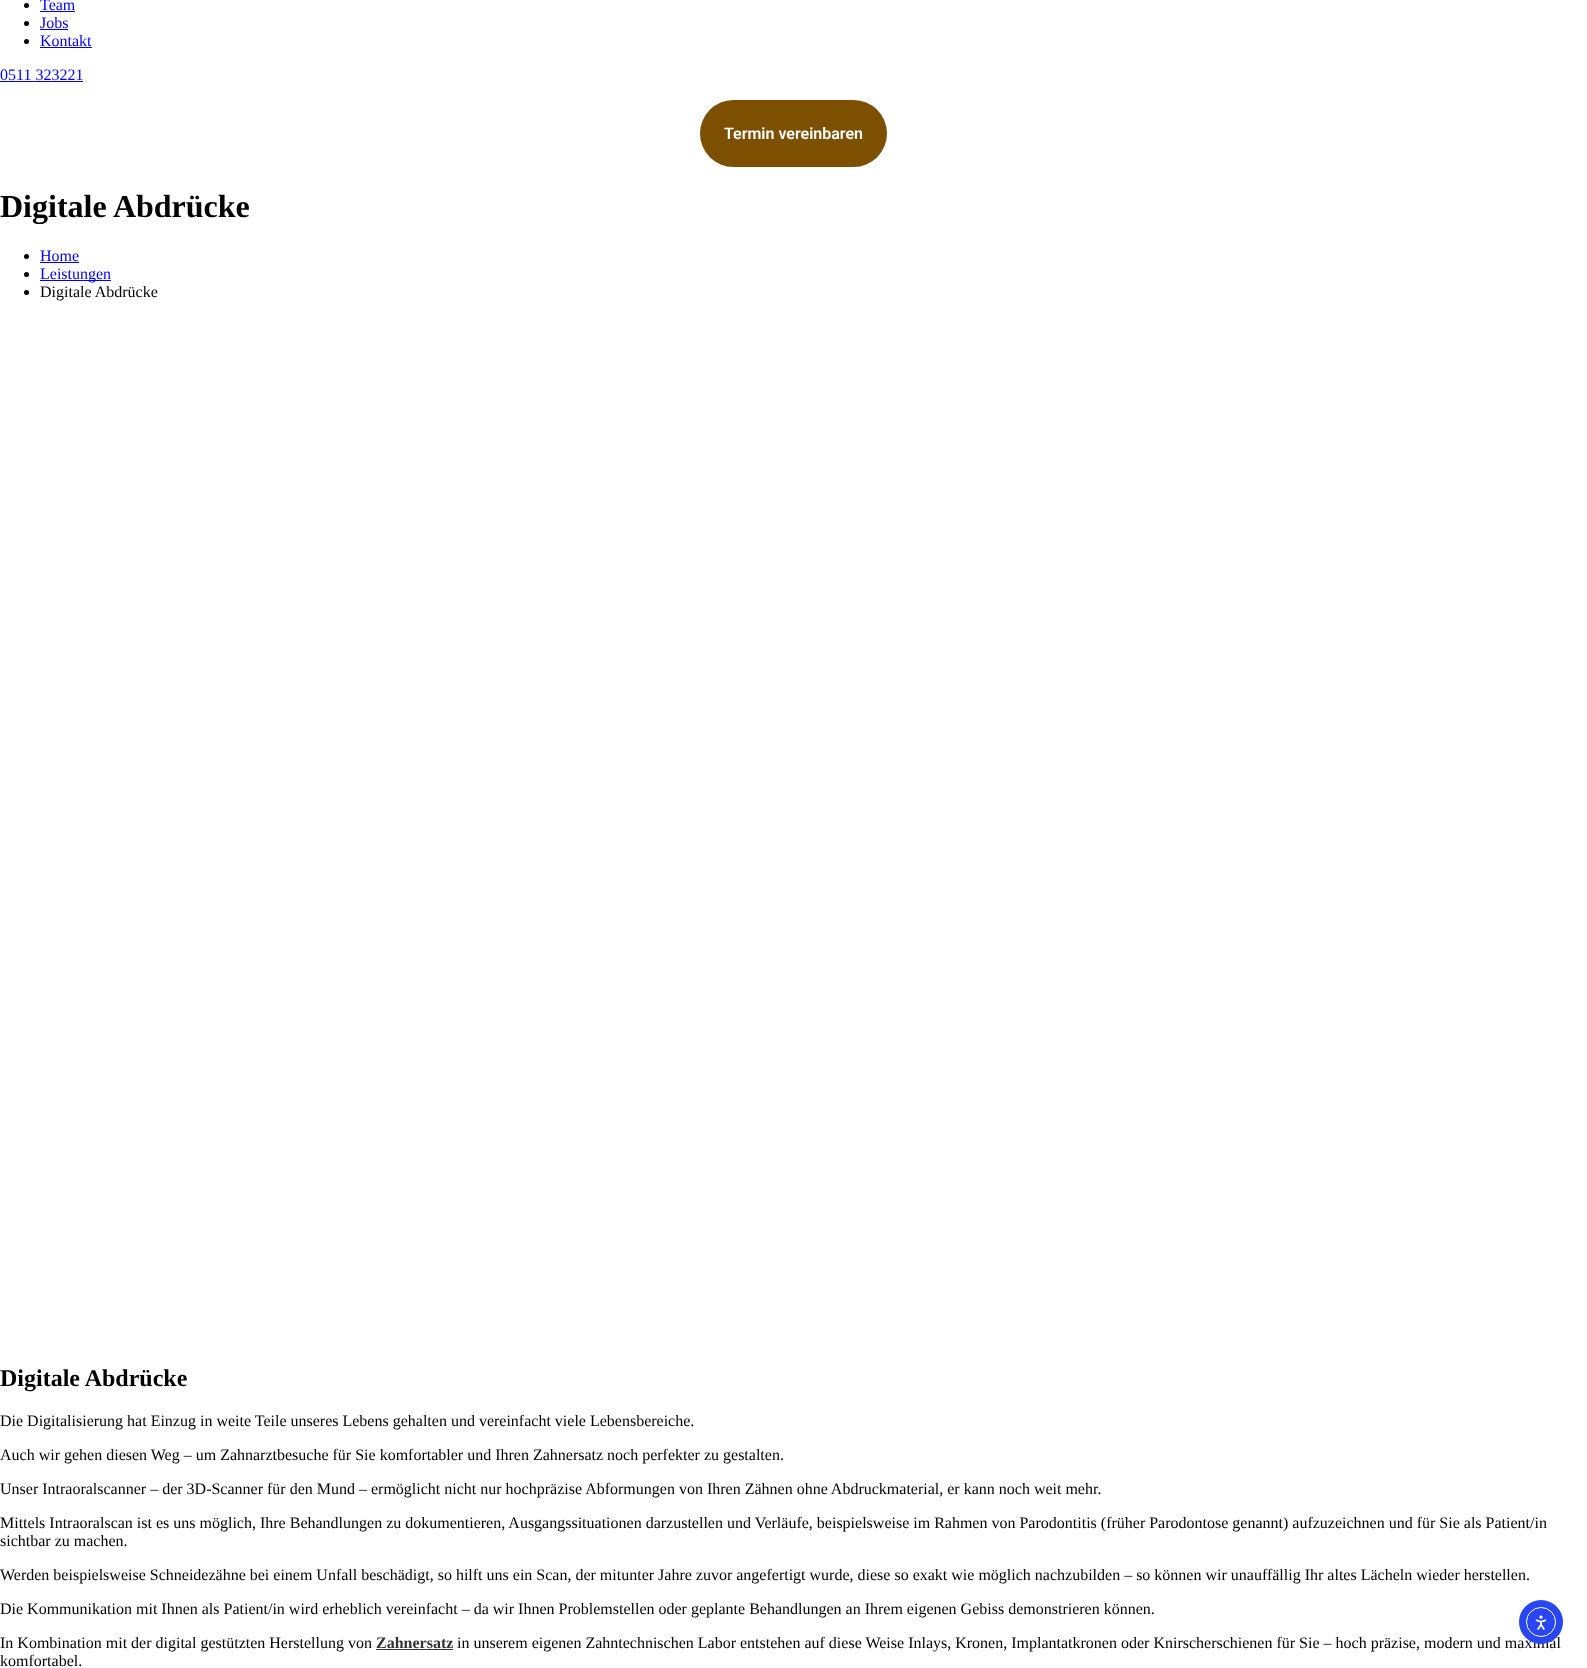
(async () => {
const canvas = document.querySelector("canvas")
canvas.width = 1587
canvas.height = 1668
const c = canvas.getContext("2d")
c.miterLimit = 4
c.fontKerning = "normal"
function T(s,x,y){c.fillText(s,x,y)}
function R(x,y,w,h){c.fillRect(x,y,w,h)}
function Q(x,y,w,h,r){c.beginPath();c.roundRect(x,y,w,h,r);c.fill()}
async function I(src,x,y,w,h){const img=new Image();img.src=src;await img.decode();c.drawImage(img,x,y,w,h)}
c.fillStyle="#fff"
R(0,0,1587,1668)
c.fillStyle="#000"
c.beginPath()
c.arc(26.5,5.5,2.5,0,7)
c.fill()
c.font="16px Liberation Serif"
c.fillStyle="#00e"
T("Team",40,10)
R(40,11,35,1)
c.fillStyle="#000"
c.beginPath()
c.arc(26.5,23.5,2.5,0,7)
c.fill()
c.fillStyle="#00e"
T("Jobs",40,28)
R(40,29,28,1)
c.fillStyle="#000"
c.beginPath()
c.arc(26.5,41.5,2.5,0,7)
c.fill()
c.fillStyle="#00e"
T("Kontakt",40,46)
R(40,47,52,1)
T("0511 323221",0,80)
R(0,81,83,1)
c.fillStyle="#7d4f01"
Q(700,100,187,67,33.5)
c.font="600 16px Roboto"
c.fillStyle="#fff"
T("Termin vereinbaren",724,139)
c.font="bold 32px Liberation Serif"
c.fillStyle="#000"
T("Digitale Abdrücke",0,217)
c.beginPath()
c.arc(26.5,256.5,2.5,0,7)
c.fill()
c.font="16px Liberation Serif"
c.fillStyle="#00e"
T("Home",40,261)
R(40,262,39,1)
c.fillStyle="#000"
c.beginPath()
c.arc(26.5,274.5,2.5,0,7)
c.fill()
c.fillStyle="#00e"
R(40,280,71,1)
T("Leistungen",40,279)
c.fillStyle="#000"
c.beginPath()
c.arc(26.5,292.5,2.5,0,7)
c.fill()
T("Digitale Abdrücke",40,297)
c.font="bold 24px Liberation Serif"
T("Digitale Abdrücke",0,1386)
c.font="16px Liberation Serif"
T("Die Digitalisierung hat Einzug in weite Teile unseres Lebens gehalten und vereinfacht viele Lebensbereiche.",0,1426)
T("Auch wir gehen diesen Weg – um Zahnarztbesuche für Sie komfortabler und Ihren Zahnersatz noch perfekter zu gestalten.",0,1460)
T("Unser Intraoralscanner – der 3D-Scanner für den Mund – ermöglicht nicht nur hochpräzise Abformungen von Ihren Zähnen ohne Abdruckmaterial, er kann noch weit mehr.",0,1494)
T("Mittels Intraoralscan ist es uns möglich, Ihre Behandlungen zu dokumentieren, Ausgangssituationen darzustellen und Verläufe, beispielsweise im Rahmen von Parodontitis (früher Parodontose genannt) aufzuzeichnen und für Sie als Patient/in",0,1528)
T("sichtbar zu machen.",0,1546)
T("Werden beispielsweise Schneidezähne bei einem Unfall beschädigt, so hilft uns ein Scan, der mitunter Jahre zuvor angefertigt wurde, diese so exakt wie möglich nachzubilden – so können wir unauffällig Ihr altes Lächeln wieder herstellen.",0,1580)
T("Die Kommunikation mit Ihnen als Patient/in wird erheblich vereinfacht – da wir Ihnen Problemstellen oder geplante Behandlungen an Ihrem eigenen Gebiss demonstrieren können.",0,1614)
T("In Kombination mit der digital gestützten Herstellung von",0,1648)
c.font="bold 16px Liberation Serif"
c.fillStyle="#333"
T("Zahnersatz",376,1648)
R(376,1649,77,1)
c.font="16px Liberation Serif"
c.fillStyle="#000"
T("in unserem eigenen Zahntechnischen Labor entstehen auf diese Weise Inlays, Kronen, Implantatkronen oder Knirscherschienen für Sie – hoch präzise, modern und maximal",457,1648)
T("komfortabel.",0,1666)
c.fillStyle="#2847f3"
c.beginPath()
c.arc(1541,1622,22,0,7)
c.fill()
c.beginPath()
c.arc(1541,1622,14.5,0,7)
c.strokeStyle="#fff"
c.stroke()
await I("1.png",1535,1615,12,15)
})()
